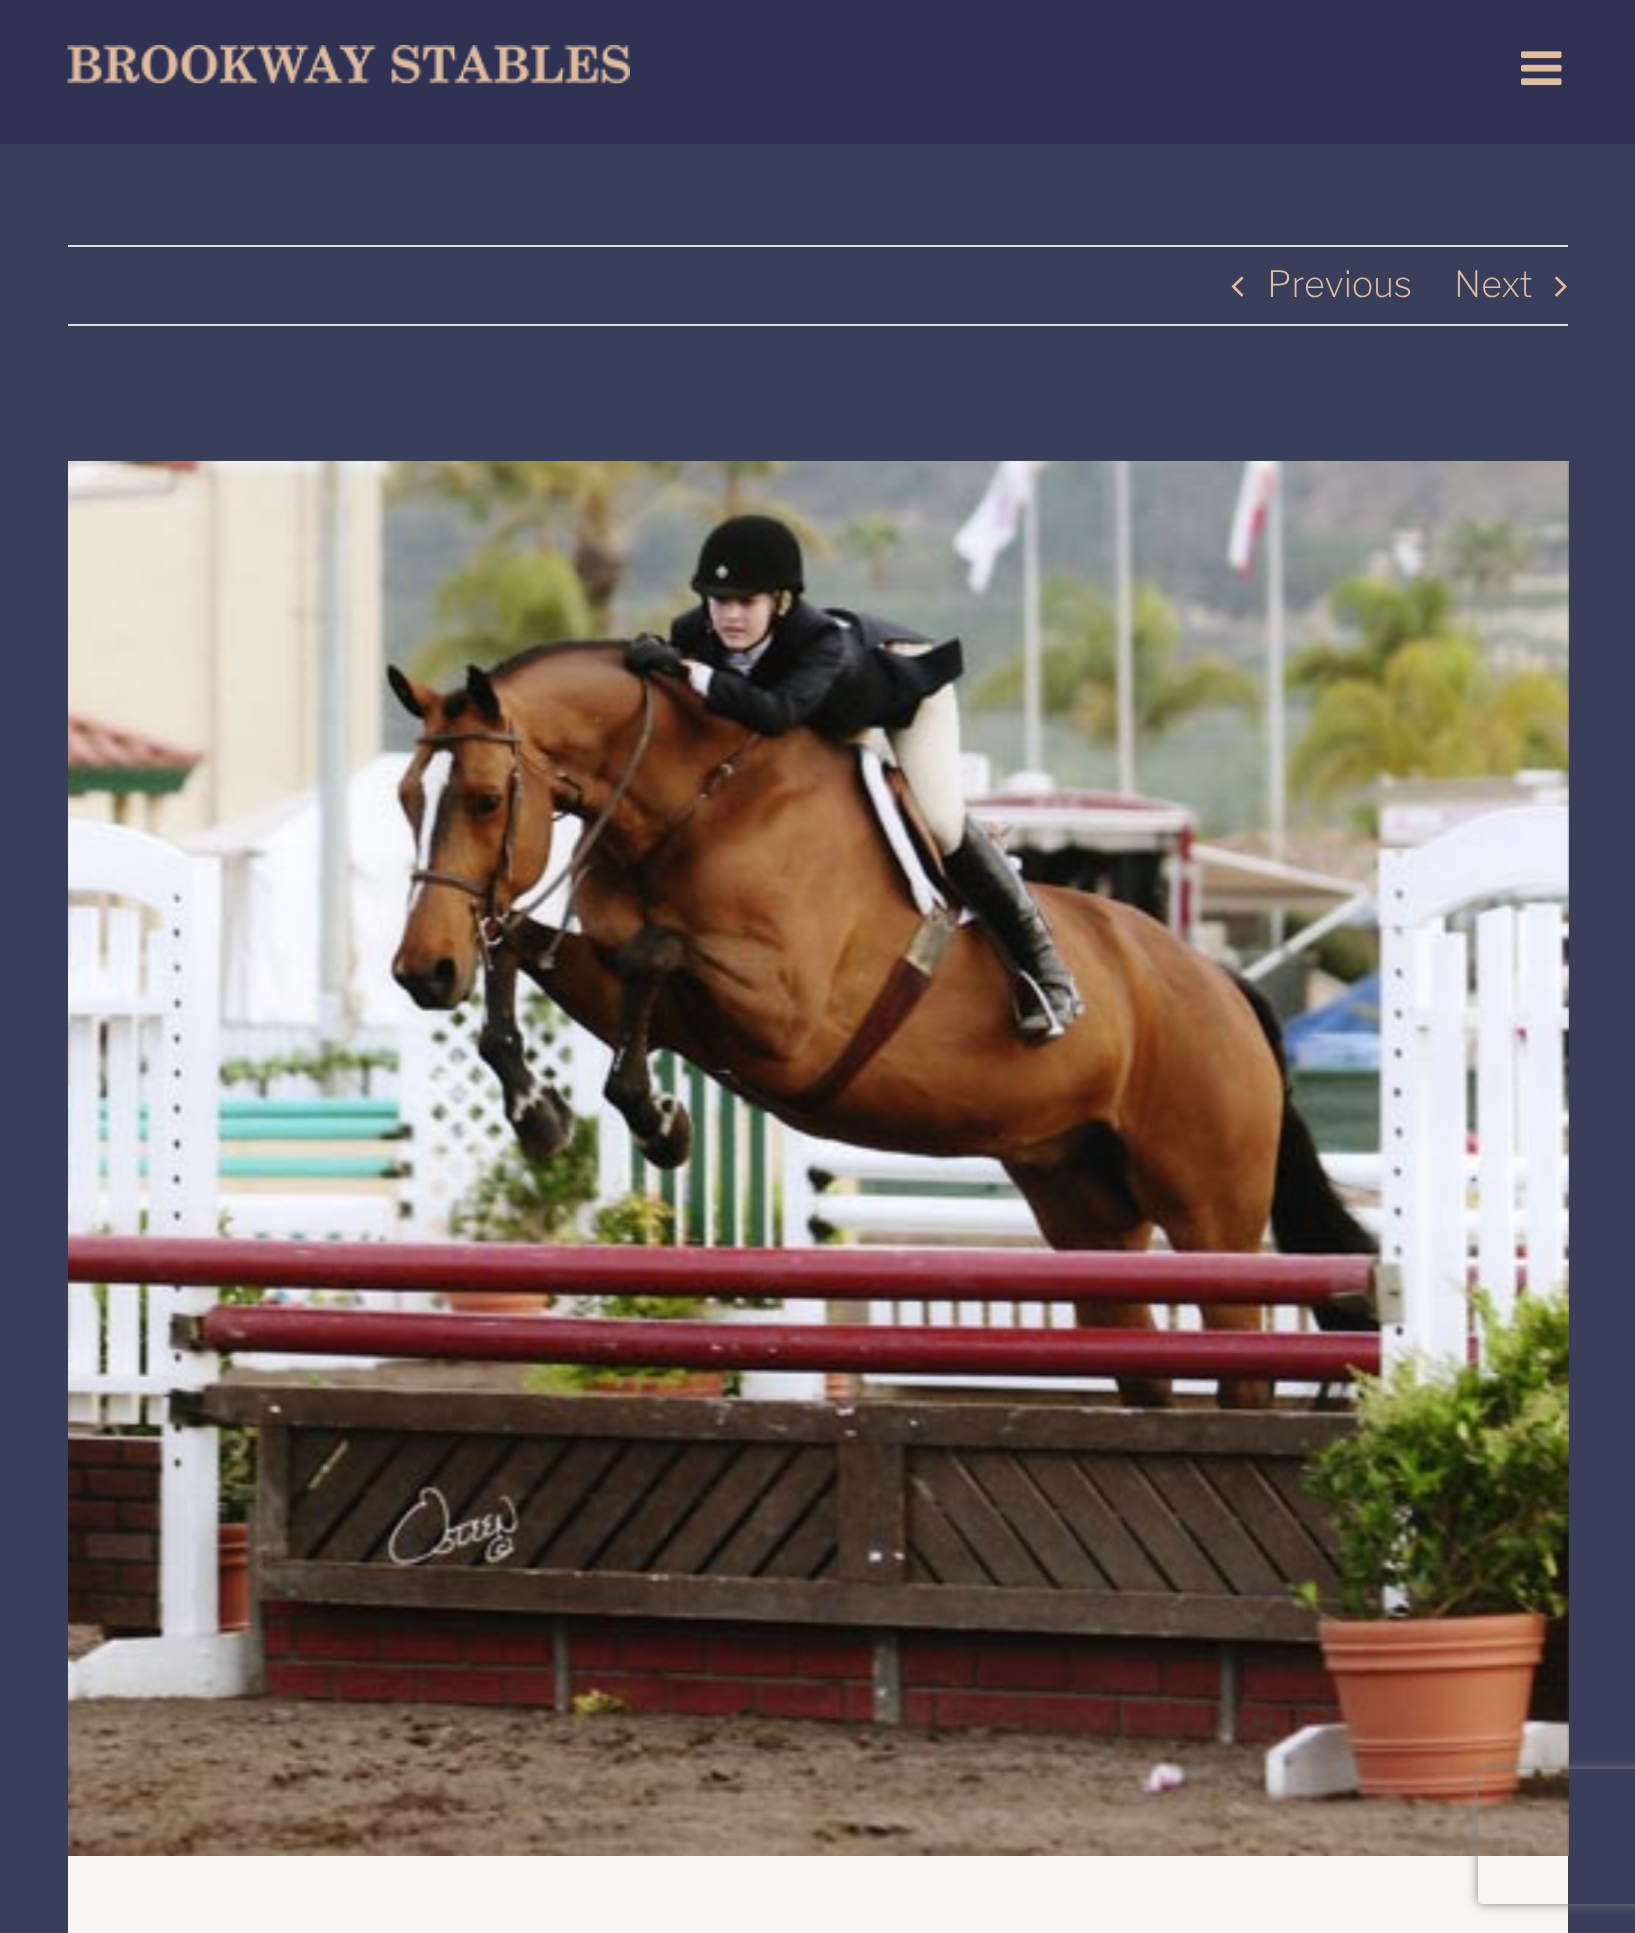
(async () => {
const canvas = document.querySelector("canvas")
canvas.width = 1635
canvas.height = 1933
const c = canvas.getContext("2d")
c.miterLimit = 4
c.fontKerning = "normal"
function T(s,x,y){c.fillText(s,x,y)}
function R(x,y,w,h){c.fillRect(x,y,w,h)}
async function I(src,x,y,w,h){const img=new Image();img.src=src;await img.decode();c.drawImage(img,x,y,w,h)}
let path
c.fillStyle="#393f5b"
R(0,0,1635,1933)
c.fillStyle="#303254"
R(0,0,1635,144)
await I("1.png",67,45,563,39)
await I("2.png",1521,51,41,35)
c.fillStyle="#e0dede"
R(68,245,1500,2)
R(68,324,1500,2)
await I("3.png",1231,276,13,21)
c.font="200 36px Libre Franklin"
c.fillStyle="#dfbd9e"
T("Previous",1267,297)
T("Next",1454,297)
await I("4.png",1555,276,12,21)
await I("5.png",68,461,1501,1395)
c.fillStyle="#f9f5f2"
R(68,1856,1500,77)
c.save()
path = new Path2D("M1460 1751h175v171h-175zm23 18h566c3 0 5 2 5 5v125c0 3-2 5-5 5h-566c-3 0-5-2-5-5v-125c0-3 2-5 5-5z")
c.clip(path,"evenodd")
c.fillStyle="#808080"
c.filter="blur(5.5px)"
c.beginPath()
c.roundRect(1478,1769,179,135,5)
c.fill()
c.filter="none"
c.restore()
})()
